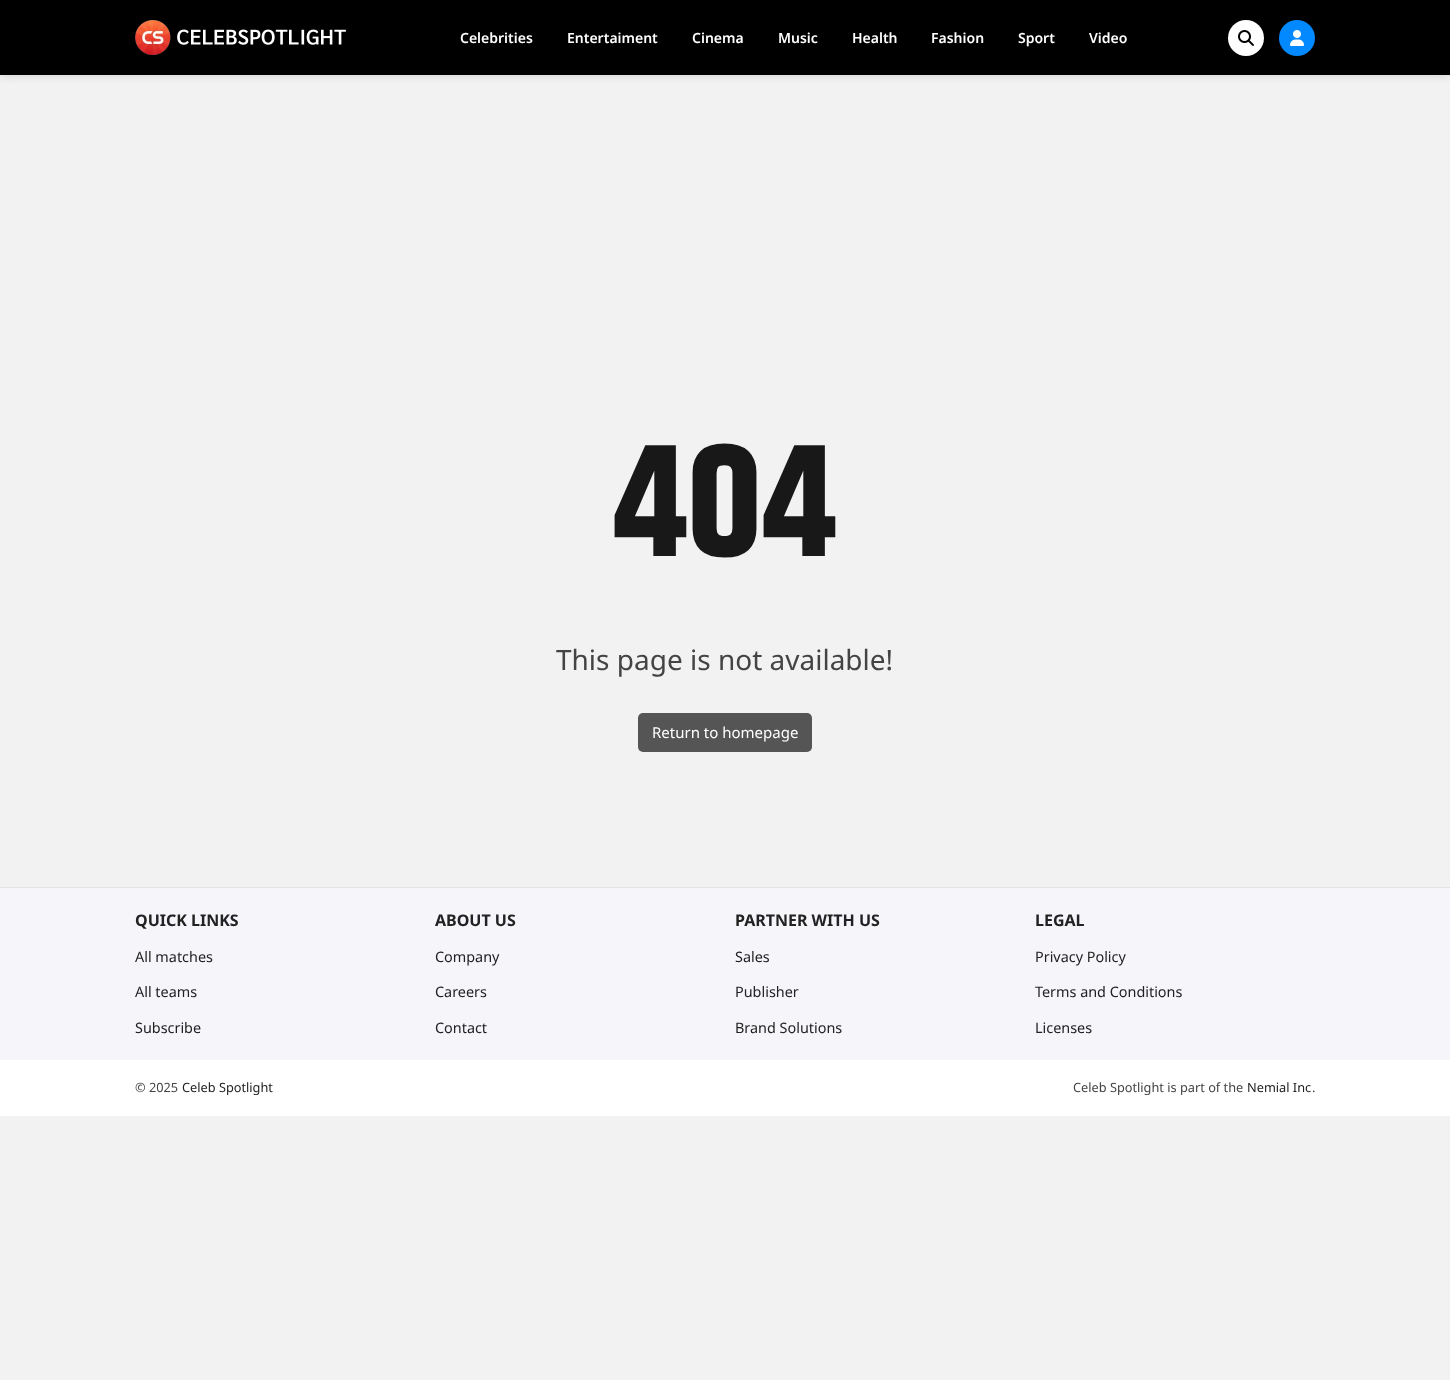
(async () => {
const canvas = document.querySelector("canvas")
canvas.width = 1450
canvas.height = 1380
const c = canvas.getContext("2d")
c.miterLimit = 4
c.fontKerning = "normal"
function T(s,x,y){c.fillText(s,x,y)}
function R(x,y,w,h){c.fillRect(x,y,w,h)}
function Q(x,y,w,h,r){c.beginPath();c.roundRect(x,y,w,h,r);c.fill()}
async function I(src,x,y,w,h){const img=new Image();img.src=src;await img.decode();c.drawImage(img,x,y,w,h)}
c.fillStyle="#f2f2f2"
R(0,0,1450,1380)
c.fillStyle="#cbcbcb"
c.filter="blur(5px)"
c.beginPath()
c.rect(0,0,1450,75)
c.fill()
c.filter="none"
c.fillStyle="#000"
R(0,0,1450,75)
await I("1.png",135,20,211,35)
c.font="600 14px Noto Sans"
c.fillStyle="#fff"
T("Celebrities",460,43)
T("Entertaiment",567,43)
T("Cinema",692,43)
T("Music",778,43)
T("Health",852,43)
T("Fashion",931,43)
T("Sport",1018,43)
T("Video",1089,43)
c.beginPath()
c.arc(1246,38,18,0,7)
c.fill()
await I("2.png",1238,30,16,16)
c.fillStyle="#0389ff"
c.beginPath()
c.arc(1297,38,18,0,7)
c.fill()
await I("3.png",1290,30,14,16)
c.font="bold 160px Khand"
c.fillStyle="#181818"
T("404",613,556)
c.font="28px Noto Sans"
c.fillStyle="#444"
T("This page is not available!",556,670)
c.fillStyle="#555"
Q(638,713,174,39,5)
c.font="15px Noto Sans"
c.fillStyle="#fff"
T("Return to homepage",652,738)
c.fillStyle="#f5f5fa"
R(0,888,1450,172)
c.fillStyle="#e2e2e2"
R(0,887,1450,1)
c.font="bold 16px Noto Sans"
c.fillStyle="#222"
T("QUICK LINKS",135,926)
c.font="14.4px Noto Sans"
T("All matches",135,962)
T("All teams",135,997)
T("Subscribe",135,1033)
c.font="bold 16px Noto Sans"
T("ABOUT US",435,926)
c.font="14.4px Noto Sans"
T("Company",435,962)
T("Careers",435,997)
T("Contact",435,1033)
c.font="bold 16px Noto Sans"
T("PARTNER WITH US",735,926)
c.font="14.4px Noto Sans"
T("Sales",735,962)
T("Publisher",735,997)
T("Brand Solutions",735,1033)
c.font="bold 16px Noto Sans"
T("LEGAL",1035,926)
c.font="14.4px Noto Sans"
T("Privacy Policy",1035,962)
T("Terms and Conditions",1035,997)
T("Licenses",1035,1033)
c.fillStyle="#fff"
R(0,1060,1450,56)
c.font="12.75px Noto Sans"
c.fillStyle="#444"
T("© 2025",135,1092)
c.fillStyle="#222"
T("Celeb Spotlight",182,1092)
c.fillStyle="#444"
T("Celeb Spotlight is part of the",1073,1092)
c.fillStyle="#222"
T("Nemial Inc",1247,1092)
c.fillStyle="#444"
T(".",1312,1092)
})()
